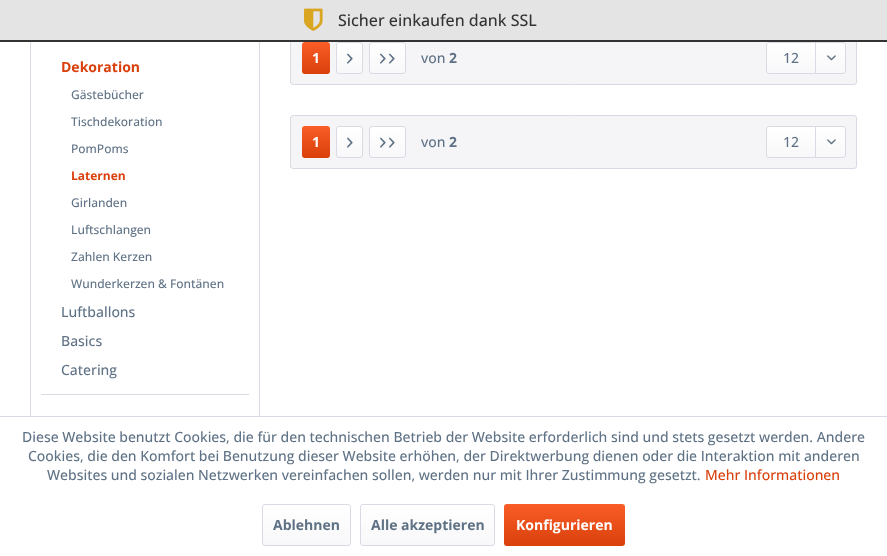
(async () => {
const canvas = document.querySelector("canvas")
canvas.width = 887
canvas.height = 556
const c = canvas.getContext("2d")
c.miterLimit = 4
c.fontKerning = "normal"
function T(s,x,y){c.fillText(s,x,y)}
function R(x,y,w,h){c.fillRect(x,y,w,h)}
function Q(x,y,w,h,r){c.beginPath();c.roundRect(x,y,w,h,r);c.fill()}
async function I(src,x,y,w,h){const img=new Image();img.src=src;await img.decode();c.drawImage(img,x,y,w,h)}
let gradient
c.fillStyle="#fff"
R(0,0,887,556)
c.strokeStyle="#dadae5"
c.strokeRect(30.5,-.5,229,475)
c.fillStyle="#f5f5f8"
c.beginPath()
c.roundRect(290.5,-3.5,566,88,2.5)
c.fill()
c.stroke()
c.fillStyle="#e4e4e4"
R(0,0,887,40)
c.fillStyle="#333"
R(0,40,887,2)
await I("1.png",304,8,19,23)
c.font="500 16px Open Sans"
T("Sicher einkaufen dank SSL",338,26)
c.fillStyle="#dadae5"
R(41,394,208,1)
c.font="bold 14px Open Sans"
c.fillStyle="#d9400b"
T("Dekoration",61,72)
c.font="500 12px Open Sans"
c.fillStyle="#5f7285"
T("Gästebücher",71,99)
T("Tischdekoration",71,126)
T("PomPoms",71,153)
c.font="bold 12px Open Sans"
c.fillStyle="#d9400b"
T("Laternen",71,180)
c.font="500 12px Open Sans"
c.fillStyle="#5f7285"
T("Girlanden",71,207)
T("Luftschlangen",71,234)
T("Zahlen Kerzen",71,261)
T("Wunderkerzen & Fontänen",71,288)
c.font="500 14px Open Sans"
T("Luftballons",61,317)
T("Basics",61,346)
T("Catering",61,375)
gradient = c.createLinearGradient(316,42,316,74)
gradient.addColorStop(0,"#fa5d27")
gradient.addColorStop(1,"#d9400b")
c.fillStyle = gradient
Q(302,42,28,32,3)
c.font="bold 14px Open Sans"
c.fillStyle="#fff"
T("1",312,63)
gradient = c.createLinearGradient(350,43,350,73)
gradient.addColorStop(0,"#fff")
gradient.addColorStop(1,"#f8f8fa")
c.fillStyle = gradient
Q(337,43,25,30,2)
c.beginPath()
c.roundRect(336.5,42.5,26,31,2.5)
c.stroke()
await I("2.png",347,53,6,11)
gradient = c.createLinearGradient(388,43,388,73)
gradient.addColorStop(0,"#fff")
gradient.addColorStop(1,"#f8f8fa")
c.fillStyle = gradient
Q(370,43,35,30,2)
c.beginPath()
c.roundRect(369.5,42.5,36,31,2.5)
c.stroke()
await I("2.png",380,53,6,11)
await I("2.png",389,53,6,11)
c.font="500 14px Open Sans"
c.fillStyle="#5f7285"
T("von",421,63)
c.font="bold 14px Open Sans"
T("2",449,63)
gradient = c.createLinearGradient(806,43,806,73)
gradient.addColorStop(0,"#fff")
gradient.addColorStop(1,"#f8f8fa")
c.fillStyle = gradient
Q(767,43,78,30,2)
c.beginPath()
c.roundRect(766.5,42.5,79,31,2.5)
c.stroke()
c.font="500 14px Open Sans"
c.fillStyle="#5f7285"
T("12",783,63)
c.fillStyle="#dadae5"
R(815,43,1,31)
await I("3.png",827,55,9,6)
c.fillStyle="#f5f5f8"
c.beginPath()
c.roundRect(290.5,115.5,566,53,2.5)
c.fill()
c.stroke()
gradient = c.createLinearGradient(316,126,316,158)
gradient.addColorStop(0,"#fa5d27")
gradient.addColorStop(1,"#d9400b")
c.fillStyle = gradient
Q(302,126,28,32,3)
c.font="bold 14px Open Sans"
c.fillStyle="#fff"
T("1",312,147)
gradient = c.createLinearGradient(350,127,350,157)
gradient.addColorStop(0,"#fff")
gradient.addColorStop(1,"#f8f8fa")
c.fillStyle = gradient
Q(337,127,25,30,2)
c.beginPath()
c.roundRect(336.5,126.5,26,31,2.5)
c.stroke()
await I("2.png",347,137,6,11)
gradient = c.createLinearGradient(388,127,388,157)
gradient.addColorStop(0,"#fff")
gradient.addColorStop(1,"#f8f8fa")
c.fillStyle = gradient
Q(370,127,35,30,2)
c.beginPath()
c.roundRect(369.5,126.5,36,31,2.5)
c.stroke()
await I("2.png",380,137,6,11)
await I("2.png",389,137,6,11)
c.font="500 14px Open Sans"
c.fillStyle="#5f7285"
T("von",421,147)
c.font="bold 14px Open Sans"
T("2",449,147)
gradient = c.createLinearGradient(806,127,806,157)
gradient.addColorStop(0,"#fff")
gradient.addColorStop(1,"#f8f8fa")
c.fillStyle = gradient
Q(767,127,78,30,2)
c.beginPath()
c.roundRect(766.5,126.5,79,31,2.5)
c.stroke()
c.font="500 14px Open Sans"
c.fillStyle="#5f7285"
T("12",783,147)
c.fillStyle="#dadae5"
R(815,127,1,31)
await I("3.png",827,139,9,6)
c.fillStyle="#fff"
R(30,417,230,58)
c.fillStyle="#dadae5"
R(0,416,887,1)
c.fillStyle="#5f7285"
T("Diese Website benutzt Cookies, die für den technischen Betrieb der Website erforderlich sind und stets gesetzt werden. Andere",22,442)
T("Cookies, die den Komfort bei Benutzung dieser Website erhöhen, der Direktwerbung dienen oder die Interaktion mit anderen",28,461)
T("Websites und sozialen Netzwerken vereinfachen sollen, werden nur mit Ihrer Zustimmung gesetzt.",47,480)
c.fillStyle="#d9400b"
T("Mehr Informationen",705,480)
gradient = c.createLinearGradient(307,505,307,545)
gradient.addColorStop(0,"#fff")
gradient.addColorStop(1,"#f8f8fa")
c.fillStyle = gradient
Q(263,505,87,40,2)
c.beginPath()
c.roundRect(262.5,504.5,88,41,2.5)
c.stroke()
c.font="bold 14px Open Sans"
c.fillStyle="#5f7285"
T("Ablehnen",273,530)
gradient = c.createLinearGradient(428,505,428,545)
gradient.addColorStop(0,"#fff")
gradient.addColorStop(1,"#f8f8fa")
c.fillStyle = gradient
Q(361,505,133,40,2)
c.beginPath()
c.roundRect(360.5,504.5,134,41,2.5)
c.stroke()
c.fillStyle="#5f7285"
T("Alle akzeptieren",371,530)
gradient = c.createLinearGradient(565,504,565,546)
gradient.addColorStop(0,"#fa5d27")
gradient.addColorStop(1,"#d9400b")
c.fillStyle = gradient
Q(504,504,121,42,3)
c.fillStyle="#fff"
T("Konfigurieren",516,530)
})()
